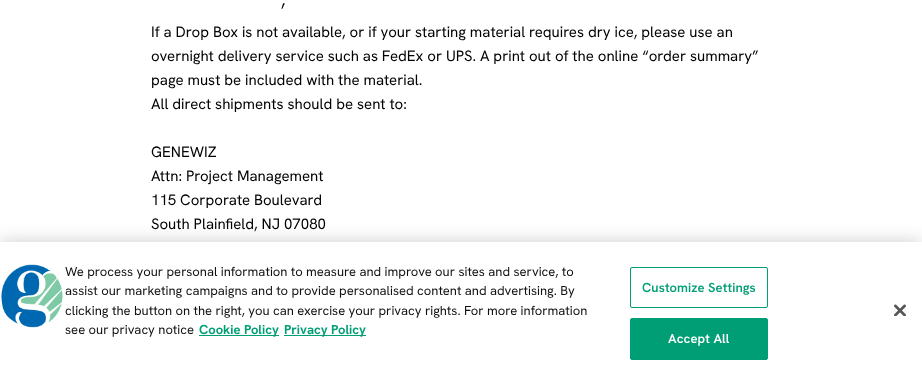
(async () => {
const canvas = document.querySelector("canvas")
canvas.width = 922
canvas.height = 380
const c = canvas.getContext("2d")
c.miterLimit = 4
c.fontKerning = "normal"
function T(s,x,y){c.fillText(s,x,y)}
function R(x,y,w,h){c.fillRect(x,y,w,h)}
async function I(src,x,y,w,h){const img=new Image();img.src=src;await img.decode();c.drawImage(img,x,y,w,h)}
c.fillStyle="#fff"
R(0,0,922,380)
c.font="18px Hanken Grotesk"
c.fillStyle="#000"
T(",",281,6)
c.font="15px Hanken Grotesk"
T("If a Drop Box is not available, or if your starting material requires dry ice, please use an",151,37)
T("overnight delivery service such as FedEx or UPS. A print out of the online “order summary”",151,61)
T("page must be included with the material.",151,85)
T("All direct shipments should be sent to:",151,109)
T("GENEWIZ",151,157)
T("Attn: Project Management",151,181)
T("115 Corporate Boulevard",151,205)
T("South Plainfield, NJ 07080",151,229)
c.fillStyle="#00000033"
c.filter="blur(9px)"
c.beginPath()
c.rect(0,242,922,138)
c.fill()
c.filter="none"
c.fillStyle="#fff"
R(0,242,922,138)
await I("1.png",1,264,62,64)
c.font="13px Hanken Grotesk"
c.fillStyle="#111"
T("We process your personal information to measure and improve our sites and service, to",65,276)
T("assist our marketing campaigns and to provide personalised content and advertising. By",65,295)
T("clicking the button on the right, you can exercise your privacy rights. For more information",65,315)
T("see our privacy notice",65,334)
c.fillStyle="#009e75"
R(199,335,80,1)
c.font="bold 13px Hanken Grotesk"
T("Cookie Policy",199,334)
R(284,335,82,1)
T("Privacy Policy",284,334)
c.beginPath()
c.roundRect(630.5,267.5,137,40,1.5)
c.strokeStyle="#009e75"
c.stroke()
c.letterSpacing="0.1px"
c.font="600 13px Hanken Grotesk"
T("Customize Settings",642,292)
c.beginPath()
c.roundRect(630.5,318.5,137,41,1.5)
c.fill()
c.stroke()
c.fillStyle="#fff"
T("Accept All",668,343)
await I("2.png",894,304,12,12)
})()
